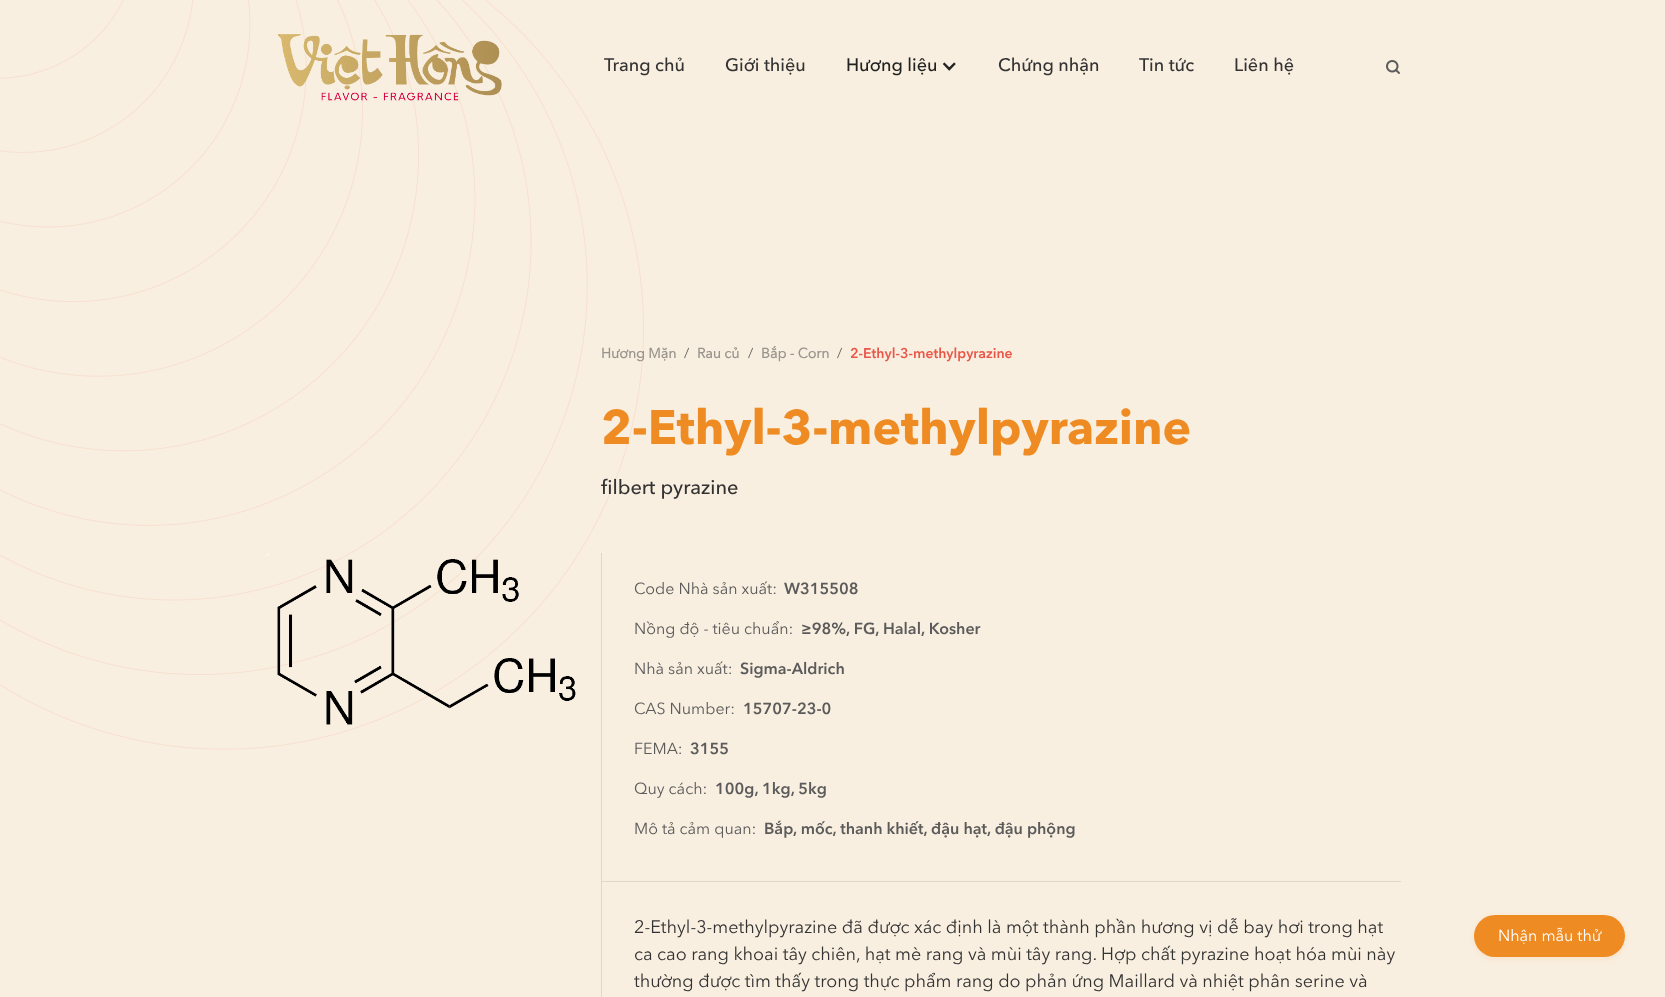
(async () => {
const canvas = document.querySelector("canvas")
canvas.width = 1665
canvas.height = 997
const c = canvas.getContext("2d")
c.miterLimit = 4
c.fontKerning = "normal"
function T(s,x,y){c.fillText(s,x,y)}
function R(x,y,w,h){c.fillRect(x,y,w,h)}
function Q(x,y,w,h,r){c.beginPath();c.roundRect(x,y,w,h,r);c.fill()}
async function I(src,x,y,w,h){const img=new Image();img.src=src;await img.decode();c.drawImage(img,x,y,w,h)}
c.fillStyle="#f9efe0"
R(0,0,1665,997)
await I("1.png",0,0,644,750)
await I("2.png",278,34,224,67)
c.font="500 18px Avenir Next"
c.fillStyle="#333"
T("Trang chủ",604,71)
T("Giới thiệu",725,71)
c.fillStyle="#222"
T("Hương liệu",846,71)
await I("3.png",942,62,14,9)
c.fillStyle="#333"
T("Chứng nhận",998,71)
T("Tin tức",1139,71)
T("Liên hệ",1234,71)
await I("4.png",1386,60,14,14)
c.font="bold 14px Avenir Next"
c.fillStyle="#99948d"
T("Hương Mặn",601,358)
c.font="14px Avenir Next"
c.fillStyle="#636363"
T("/",684,358)
c.font="bold 14px Avenir Next"
c.fillStyle="#99948d"
T("Rau củ",697,358)
c.font="14px Avenir Next"
c.fillStyle="#636363"
T("/",748,358)
c.font="bold 14px Avenir Next"
c.fillStyle="#99948d"
T("Bắp - Corn",761,358)
c.font="14px Avenir Next"
c.fillStyle="#636363"
T("/",837,358)
c.font="600 14px Avenir Next"
c.fillStyle="#e95749"
T("2-Ethyl-3-methylpyrazine",850,358)
c.font="bold 48px 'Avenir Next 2'"
c.fillStyle="#ee8b23"
T("2-Ethyl-3-methylpyrazine",601,444)
c.font="500 20px Avenir Next"
c.fillStyle="#333"
T("filbert pyrazine",601,494)
await I("5.png",265,554,311,171)
c.fillStyle="#e0d7ca"
R(601,553,1,444)
c.font="16px Avenir Next"
c.fillStyle="#5b5b5b"
T("Code Nhà sản xuất:",634,594)
c.font="600 16px Avenir Next"
T("W315508",784,594)
c.font="16px Avenir Next"
T("Nồng độ - tiêu chuẩn:",634,634)
c.font="600 16px Avenir Next"
T("≥98%, FG, Halal, Kosher",801,634)
c.font="16px Avenir Next"
T("Nhà sản xuất:",634,674)
c.font="600 16px Avenir Next"
T("Sigma-Aldrich",740,674)
c.font="16px Avenir Next"
T("CAS Number:",634,714)
c.font="600 16px Avenir Next"
T("15707-23-0",743,714)
c.font="16px Avenir Next"
T("FEMA:",634,754)
c.font="600 16px Avenir Next"
T("3155",690,754)
c.font="16px Avenir Next"
T("Quy cách:",634,794)
c.font="600 16px Avenir Next"
T("100g, 1kg, 5kg",715,794)
c.font="16px Avenir Next"
T("Mô tả cảm quan:",634,834)
c.font="600 16px Avenir Next"
T("Bắp, mốc, thanh khiết, đậu hạt, đậu phộng",764,834)
c.fillStyle="#e0d7ca"
R(602,881,799,1)
c.font="18px Avenir Next"
c.fillStyle="#333"
T("2-Ethyl-3-methylpyrazine đã được xác định là một thành phần hương vị dễ bay hơi trong hạt",634,933)
T("ca cao rang khoai tây chiên, hạt mè rang và mùi tây rang. Hợp chất pyrazine hoạt hóa mùi này",634,960)
T("thường được tìm thấy trong thực phẩm rang do phản ứng Maillard và nhiệt phân serine và",634,987)
c.fillStyle="#ee8b231f"
c.filter="blur(3px)"
c.beginPath()
c.roundRect(1474,917,151,42,21)
c.fill()
c.filter="none"
c.fillStyle="#ee8b23"
Q(1474,915,151,42,21)
c.font="16px Avenir Next"
c.fillStyle="#fff"
T("Nhận mẫu thử",1498,941)
})()
